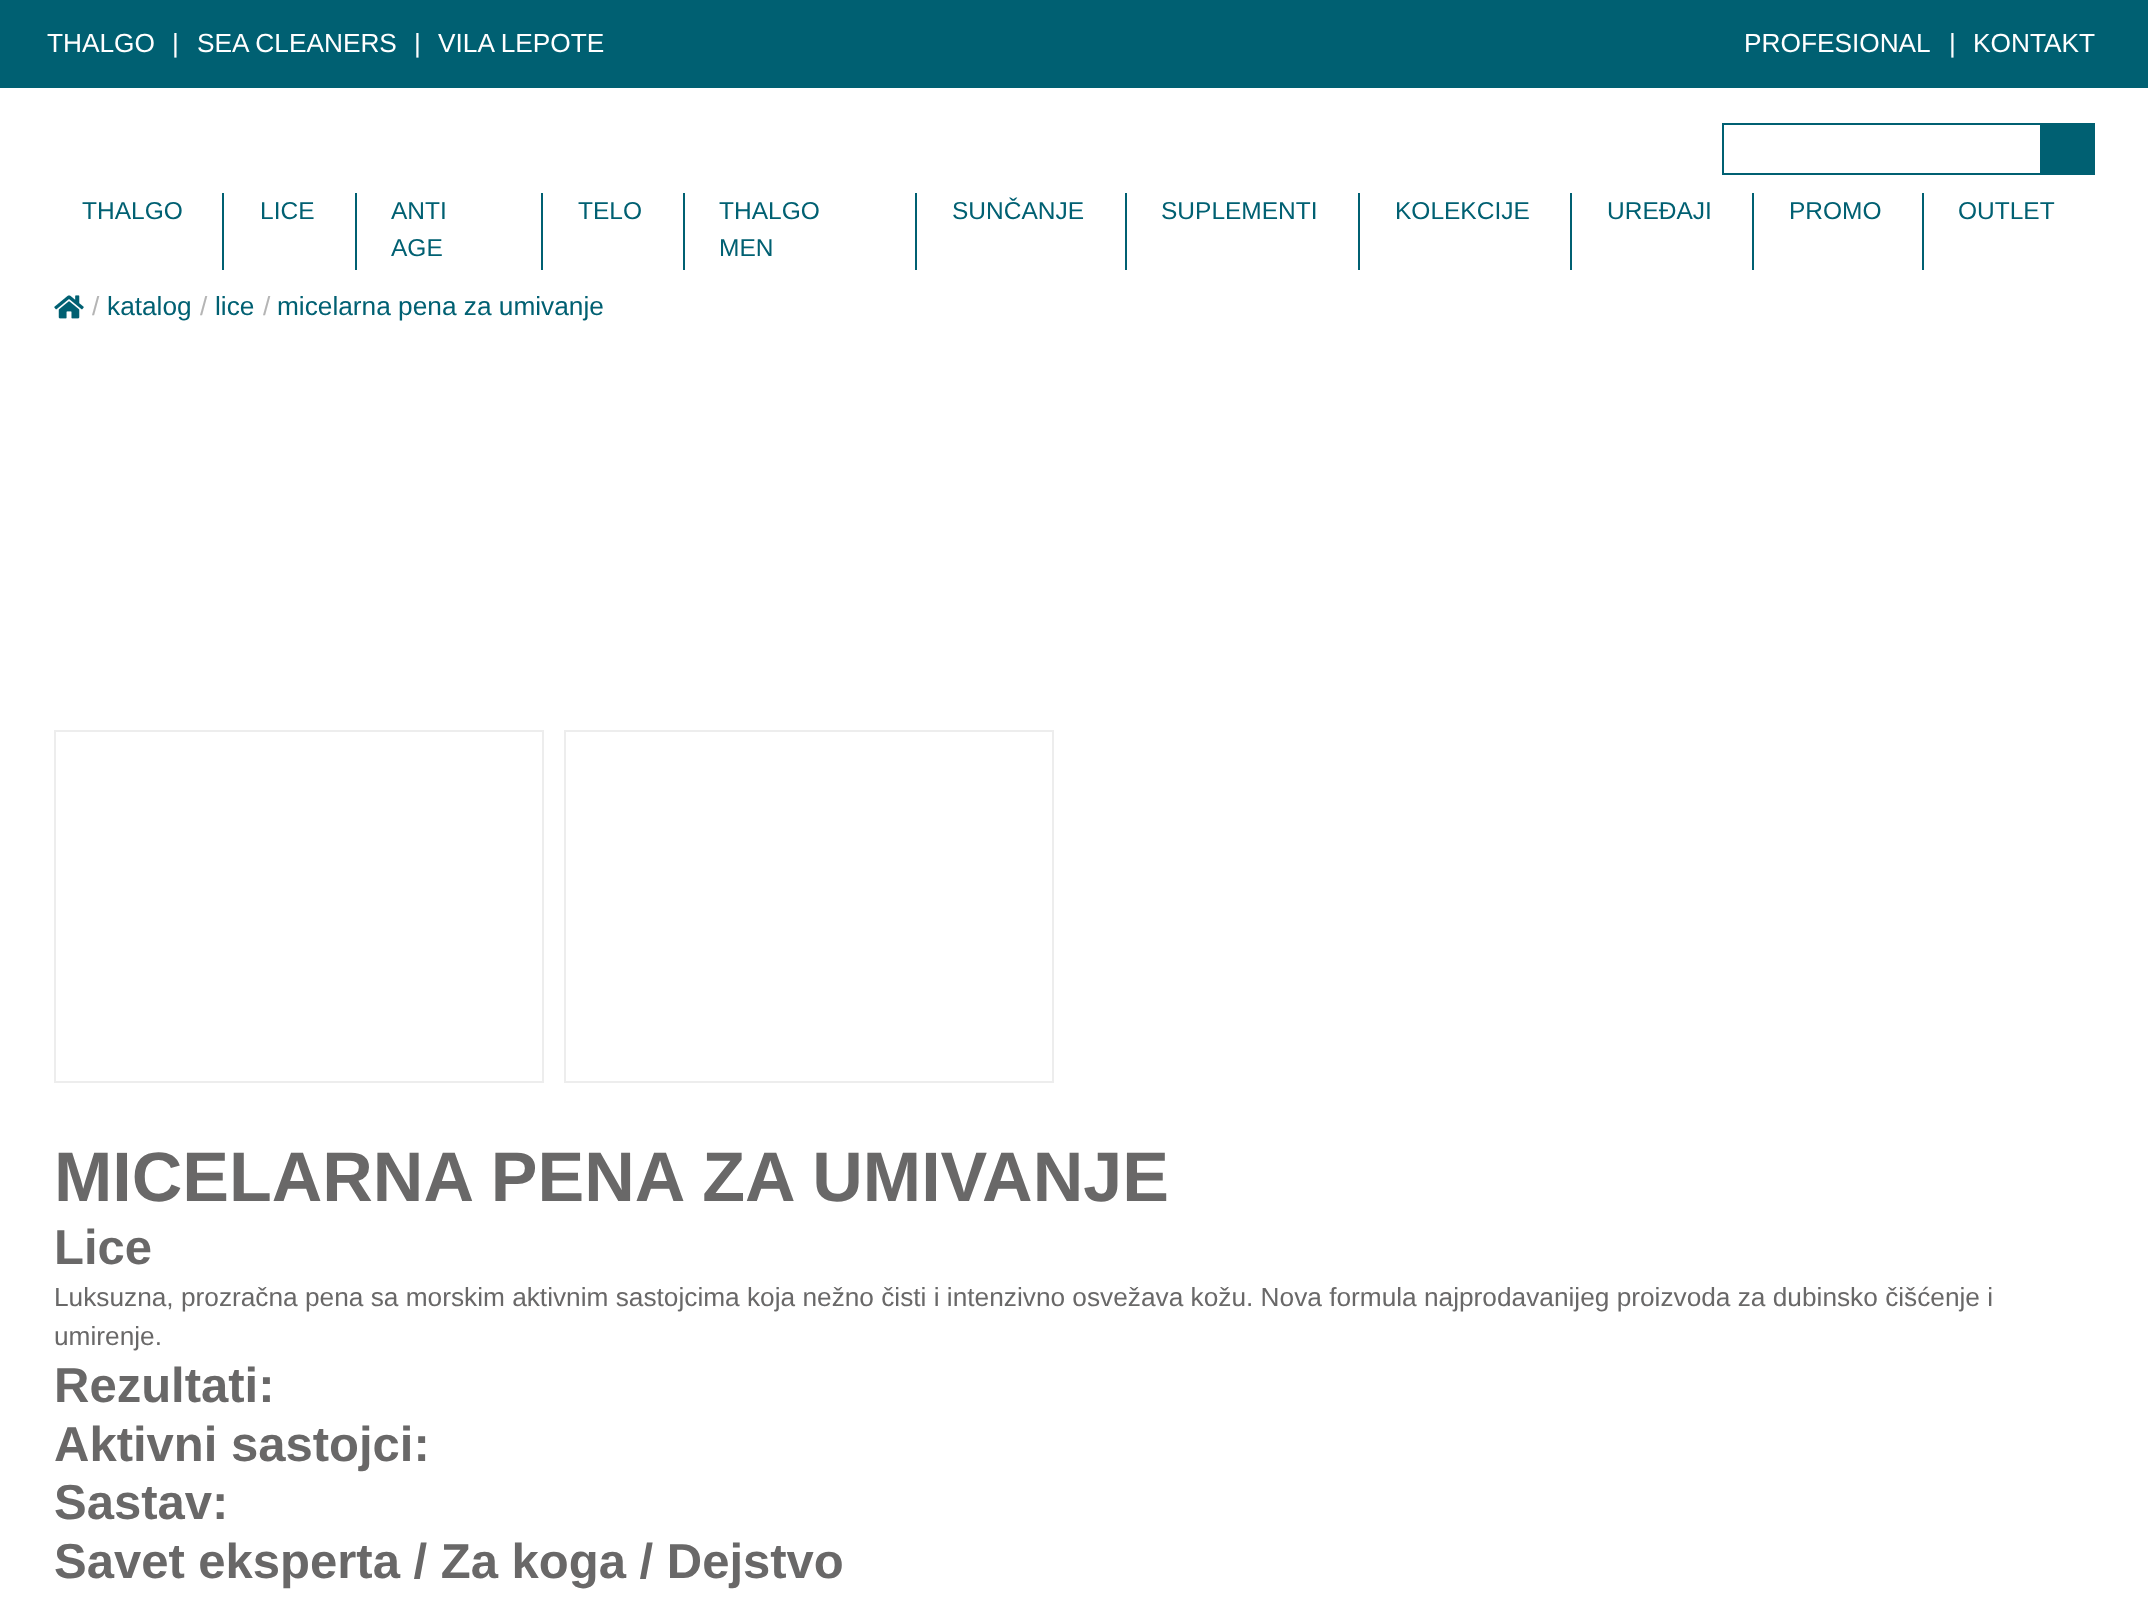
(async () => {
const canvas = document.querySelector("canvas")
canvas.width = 2148
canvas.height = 1613
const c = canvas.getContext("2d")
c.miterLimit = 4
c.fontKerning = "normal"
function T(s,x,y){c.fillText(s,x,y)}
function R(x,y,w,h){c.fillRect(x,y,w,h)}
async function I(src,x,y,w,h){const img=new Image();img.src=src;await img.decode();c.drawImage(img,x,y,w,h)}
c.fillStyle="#fff"
R(0,0,2148,1613)
c.fillStyle="#006072"
R(0,0,2148,88)
c.font="26.25px Liberation Sans"
c.fillStyle="#fff"
T("THALGO",47,52)
T("|",172,52)
T("SEA CLEANERS",197,52)
T("|",414,52)
T("VILA LEPOTE",438,52)
T("PROFESIONAL",1744,52)
T("|",1949,52)
T("KONTAKT",1973,52)
c.strokeStyle="#006072"
c.lineWidth=2
c.strokeRect(1723,124,318,50)
c.fillStyle="#006072"
R(2042,123,53,52)
R(222,193,2,77)
c.font="24.5px Liberation Sans"
T("THALGO",82,219)
R(355,193,2,77)
T("LICE",260,219)
R(541,193,2,77)
T("ANTI",391,219)
T("AGE",391,256)
R(683,193,2,77)
T("TELO",578,219)
R(915,193,2,77)
T("THALGO",719,219)
T("MEN",719,256)
R(1125,193,2,77)
T("SUNČANJE",952,219)
R(1358,193,2,77)
T("SUPLEMENTI",1161,219)
R(1570,193,2,77)
T("KOLEKCIJE",1395,219)
R(1752,193,2,77)
T("UREĐAJI",1607,219)
R(1922,193,2,77)
T("PROMO",1789,219)
T("OUTLET",1958,219)
await I("1.png",54,295,30,24)
c.font="26.25px Liberation Sans"
c.fillStyle="#b5b5b5"
T("/",92,315)
c.fillStyle="#006072"
T("katalog",107,315)
c.fillStyle="#b5b5b5"
T("/",200,315)
c.fillStyle="#006072"
T("lice",215,315)
c.fillStyle="#b5b5b5"
T("/",263,315)
c.fillStyle="#006072"
T("micelarna pena za umivanje",277,315)
c.strokeStyle="#ededed"
c.strokeRect(55,731,488,351)
c.strokeRect(565,731,488,351)
c.font="bold 70px Liberation Sans"
c.fillStyle="#696868"
T("MICELARNA PENA ZA UMIVANJE",54,1201)
c.font="bold 49px Liberation Sans"
T("Lice",54,1264)
c.font="26.25px Liberation Sans"
T("Luksuzna, prozračna pena sa morskim aktivnim sastojcima koja nežno čisti i intenzivno osvežava kožu. Nova formula najprodavanijeg proizvoda za dubinsko čišćenje i",54,1306)
T("umirenje.",54,1345)
c.font="bold 49px Liberation Sans"
T("Rezultati:",54,1402)
T("Aktivni sastojci:",54,1461)
T("Sastav:",54,1519)
T("Savet eksperta / Za koga / Dejstvo",54,1578)
})()
